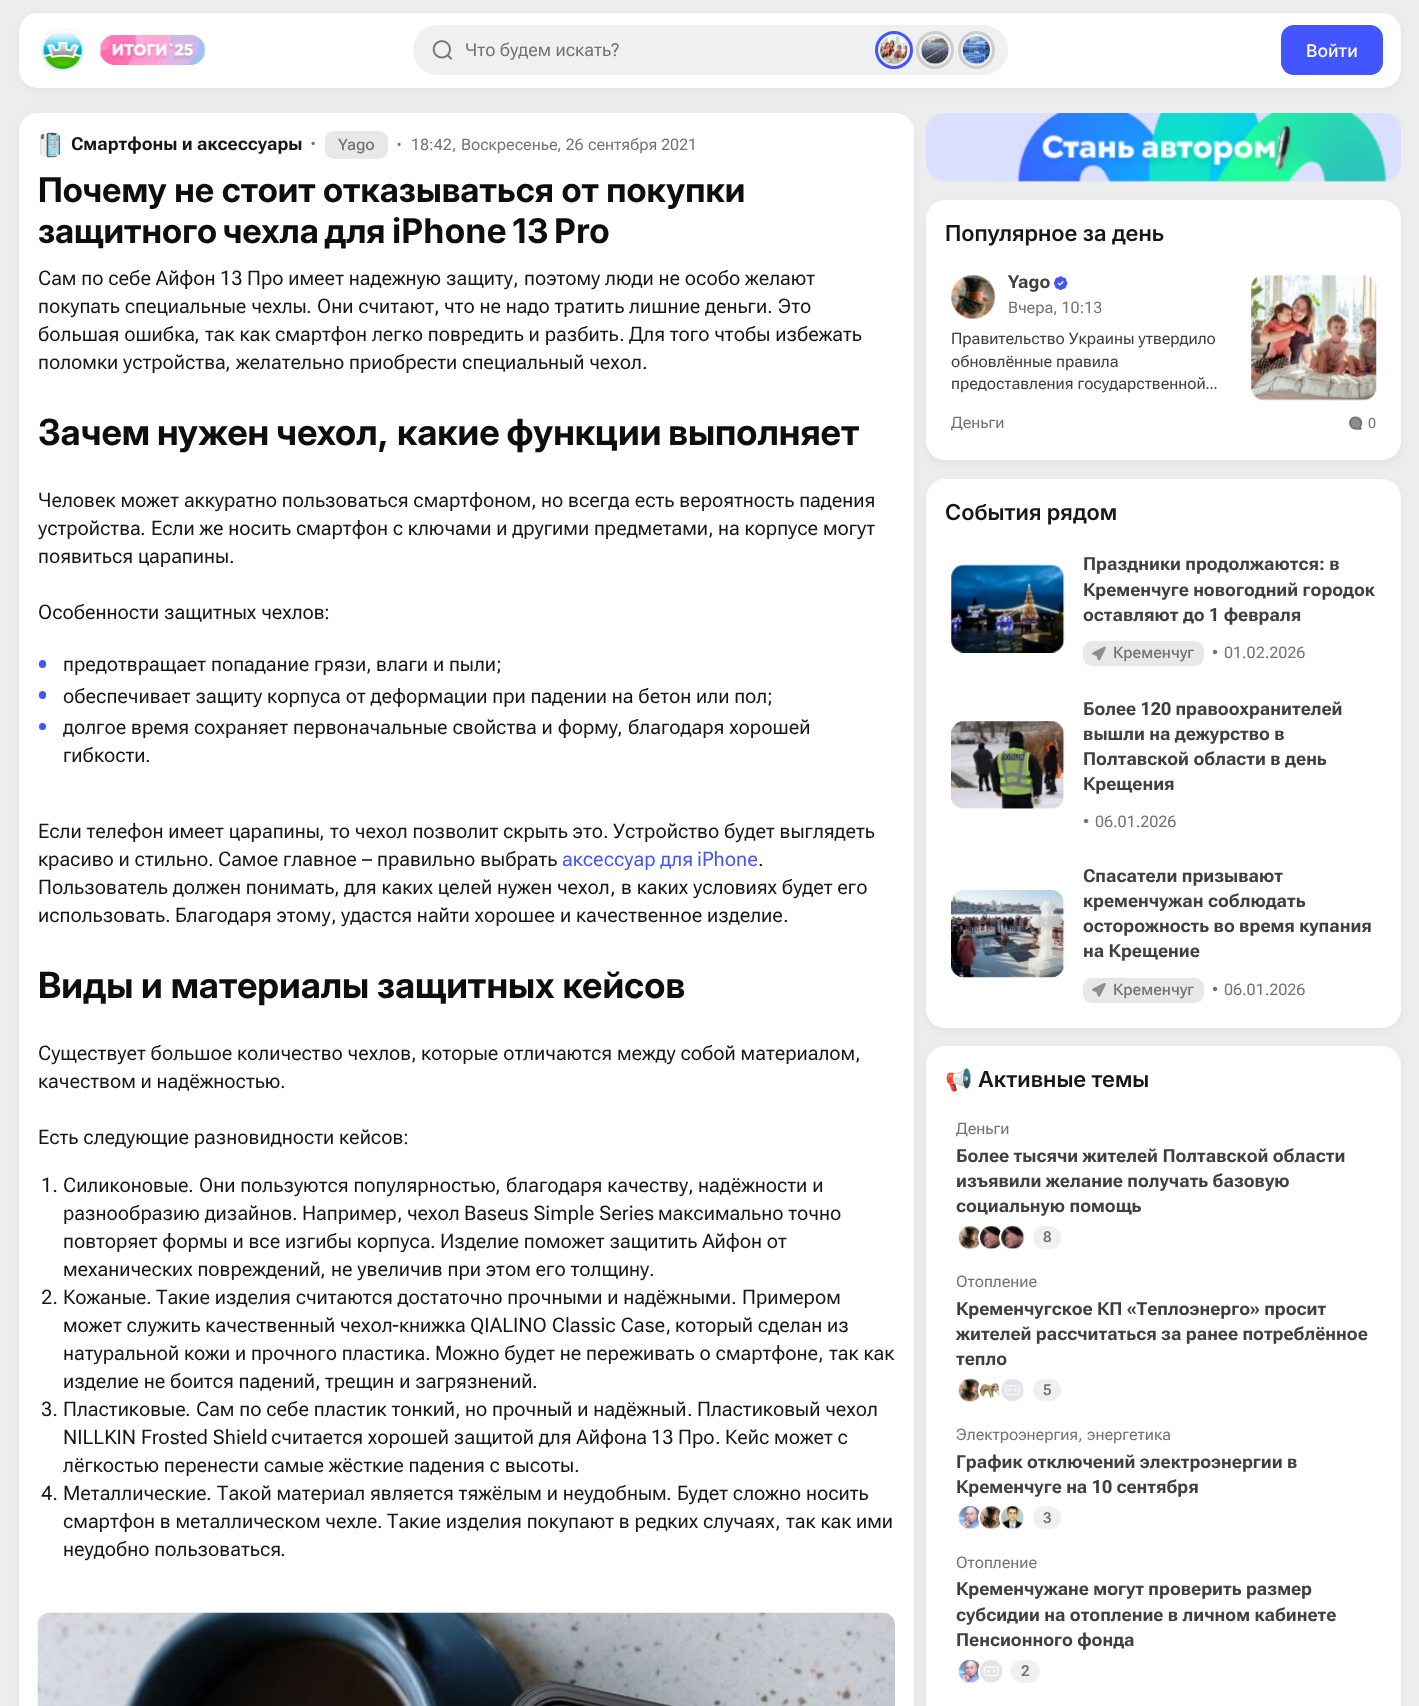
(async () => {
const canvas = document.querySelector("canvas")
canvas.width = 1419
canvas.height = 1706
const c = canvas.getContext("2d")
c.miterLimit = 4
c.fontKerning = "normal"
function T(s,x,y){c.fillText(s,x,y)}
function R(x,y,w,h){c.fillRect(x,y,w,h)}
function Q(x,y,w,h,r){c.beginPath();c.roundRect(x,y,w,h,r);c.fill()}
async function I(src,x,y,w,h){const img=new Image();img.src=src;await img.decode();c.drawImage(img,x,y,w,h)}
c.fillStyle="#ededed"
R(0,0,1419,1706)
c.fillStyle="#5e5e5e12"
c.filter="blur(5px)"
c.beginPath()
c.roundRect(19,16,1382,75,19)
c.fill()
c.filter="none"
c.fillStyle="#fff"
Q(19,13,1382,75,19)
await I("1.png",41,28,44,44)
await I("2.png",100,35,106,30)
c.fillStyle="#f0f0f0"
Q(413,25,595,50,25)
await I("3.png",432,40,21,20)
c.font="18px 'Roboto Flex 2'"
c.fillStyle="#737373"
T("Что будем искать?",465,56)
c.beginPath()
c.arc(894,50,17.5,0,7)
c.strokeStyle="#4255ff"
c.lineWidth=3
c.stroke()
await I("4.png",880,36,28,29)
c.beginPath()
c.arc(935,50,17.5,0,7)
c.strokeStyle="#cdcdcd"
c.stroke()
await I("5.png",921,36,28,29)
c.beginPath()
c.roundRect(959.5,32.5,34,35,17)
c.stroke()
await I("6.png",962,36,28,29)
c.fillStyle="#4255ff"
Q(1281,25,102,50,13)
c.font="500 17.5px Inter"
c.fillStyle="#fff"
T("Войти",1306,57)
c.fillStyle="#5e5e5e12"
c.filter="blur(5px)"
c.beginPath()
c.roundRect(19,116,895,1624,19)
c.fill()
c.filter="none"
c.fillStyle="#fff"
Q(19,113,895,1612,19)
await I("7.png",40,132,21,26)
c.font="bold 18px Roboto Flex"
c.fillStyle="#171717"
T("Смартфоны и аксессуары",71,150)
c.font="bold 10px 'Roboto Flex 2'"
c.fillStyle="#737373"
T("•",311,147)
c.fillStyle="#e8e8e8"
Q(325,131,63,28,9)
c.font="500 16px Roboto Flex"
c.fillStyle="#737373"
T("Yago",338,150)
c.font="10px Roboto Flex"
T("•",397,148)
c.font="16px 'Roboto Flex 2'"
T("18:42,",411,150)
c.font="16px 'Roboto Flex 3'"
T("Воскресенье",461,150)
c.font="16px 'Roboto Flex 2'"
T(", 26",557,150)
c.font="16px 'Roboto Flex 3'"
T("сентября",588,150)
c.font="16px 'Roboto Flex 2'"
T("2021",661,150)
c.font="bold 34px Inter"
c.fillStyle="#0e0e0e"
T("Почему не стоит отказываться от покупки",38,202)
c.wordSpacing="-2px"
T("защитного чехла для",38,243)
c.wordSpacing="0px"
c.font="bold 34px 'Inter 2'"
T("iPhone",392,243)
T("13",512,243)
T("Pro",554,243)
c.font="20px 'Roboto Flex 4'"
c.fillStyle="#171717"
T("Сам по себе Айфон",38,285)
c.font="20px 'Roboto Flex 2'"
T("13",220,285)
c.font="20px 'Roboto Flex 4'"
T("Про имеет надежную защиту",247,285)
c.font="20px 'Roboto Flex 2'"
T(",",513,285)
c.font="20px 'Roboto Flex 4'"
T("поэтому люди не особо желают",524,285)
T("покупать специальные чехлы",38,313)
c.font="20px 'Roboto Flex 2'"
T(".",306,313)
c.font="20px 'Roboto Flex 4'"
T("Они считают",317,313)
c.font="20px 'Roboto Flex 2'"
T(",",434,313)
c.font="20px 'Roboto Flex 4'"
T("что не надо тратить лишние деньги",444,313)
c.font="20px 'Roboto Flex 2'"
T(".",767,313)
c.font="20px 'Roboto Flex 4'"
T("Это",778,313)
T("большая ошибка",38,341)
c.font="20px 'Roboto Flex 2'"
T(",",194,341)
c.font="20px 'Roboto Flex 4'"
T("так как смартфон легко повредить и разбить",205,341)
c.font="20px 'Roboto Flex 2'"
T(".",619,341)
c.font="20px 'Roboto Flex 4'"
T("Для того чтобы избежать",629,341)
T("поломки устройства",38,369)
c.font="20px 'Roboto Flex 2'"
T(",",225,369)
c.font="20px 'Roboto Flex 4'"
T("желательно приобрести специальный чехол",236,369)
c.font="20px 'Roboto Flex 2'"
T(".",642,369)
c.wordSpacing="-1px"
c.font="bold 36px 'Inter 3'"
c.fillStyle="#0e0e0e"
T("Зачем нужен чехол",38,445)
c.wordSpacing="0px"
c.font="bold 36px 'Inter 2'"
T(",",377,445)
c.wordSpacing="-1px"
c.font="bold 36px 'Inter 3'"
T("какие функции выполняет",397,445)
c.wordSpacing="0px"
c.font="20px 'Roboto Flex 4'"
c.fillStyle="#171717"
T("Человек может аккуратно пользоваться смартфоном",38,507)
c.font="20px 'Roboto Flex 2'"
T(",",531,507)
c.font="20px 'Roboto Flex 4'"
T("но всегда есть вероятность падения",541,507)
T("устройства",38,535)
c.font="20px 'Roboto Flex 2'"
T(".",140,535)
c.font="20px 'Roboto Flex 4'"
T("Если же носить смартфон с ключами и другими предметами",151,535)
c.font="20px 'Roboto Flex 2'"
T(",",708,535)
c.font="20px 'Roboto Flex 4'"
T("на корпусе могут",718,535)
T("появиться царапины",38,563)
c.font="20px 'Roboto Flex 2'"
T(".",229,563)
c.font="20px 'Roboto Flex 4'"
T("Особенности защитных чехлов",38,619)
c.font="20px 'Roboto Flex 2'"
T(":",324,619)
c.fillStyle="#4255ff"
Q(39,660,7,8,3.5)
c.font="20px 'Roboto Flex 4'"
c.fillStyle="#171717"
T("предотвращает попадание грязи",63,671)
c.font="20px 'Roboto Flex 2'"
T(",",366,671)
c.font="20px 'Roboto Flex 4'"
T("влаги и пыли",376,671)
c.font="20px 'Roboto Flex 2'"
T(";",496,671)
c.fillStyle="#4255ff"
Q(39,691,7,8,3.5)
c.font="20px 'Roboto Flex 4'"
c.fillStyle="#171717"
T("обеспечивает защиту корпуса от деформации при падении на бетон или пол",63,703)
c.font="20px 'Roboto Flex 2'"
T(";",767,703)
c.fillStyle="#4255ff"
c.beginPath()
c.arc(42.5,726.5,3.5,0,7)
c.fill()
c.font="20px 'Roboto Flex 4'"
c.fillStyle="#171717"
T("долгое время сохраняет первоначальные свойства и форму",63,734)
T("благодаря хорошей",628,734)
c.font="20px 'Roboto Flex 2'"
T(",",617,734)
c.font="20px 'Roboto Flex 4'"
T("гибкости",63,762)
c.font="20px 'Roboto Flex 2'"
T(".",145,762)
c.font="20px 'Roboto Flex 4'"
T("Если телефон имеет царапины",38,838)
c.font="20px 'Roboto Flex 2'"
T(",",319,838)
c.font="20px 'Roboto Flex 4'"
T("то чехол позволит скрыть это",330,838)
c.font="20px 'Roboto Flex 2'"
T(".",603,838)
c.font="20px 'Roboto Flex 4'"
T("Устройство будет выглядеть",613,838)
T("красиво и стильно",38,866)
T("Самое главное",218,866)
c.font="20px 'Roboto Flex 2'"
T("–",362,866)
c.font="20px 'Roboto Flex 4'"
T("правильно выбрать",377,866)
c.fillStyle="#4255ff"
T("аксессуар для",562,866)
c.font="20px 'Roboto Flex 2'"
T("iPhone",697,866)
c.fillStyle="#171717"
T(".",208,866)
T(".",758,866)
c.font="20px 'Roboto Flex 4'"
T("Пользователь должен понимать",38,894)
c.font="20px 'Roboto Flex 2'"
T(",",334,894)
c.font="20px 'Roboto Flex 4'"
T("для каких целей нужен чехол",344,894)
c.font="20px 'Roboto Flex 2'"
T(",",610,894)
c.font="20px 'Roboto Flex 4'"
T("в каких условиях будет его",621,894)
T("использовать",38,922)
c.font="20px 'Roboto Flex 2'"
T(".",165,922)
c.font="20px 'Roboto Flex 4'"
T("Благодаря этому",175,922)
c.font="20px 'Roboto Flex 2'"
T(",",331,922)
c.font="20px 'Roboto Flex 4'"
T("удастся найти хорошее и качественное изделие",341,922)
c.font="20px 'Roboto Flex 2'"
T(".",783,922)
c.font="bold 36px 'Inter 3'"
c.fillStyle="#0e0e0e"
T("Виды и материалы защитных кейсов",38,998)
c.font="20px 'Roboto Flex 4'"
c.fillStyle="#171717"
T("Существует большое количество чехлов",38,1060)
c.font="20px 'Roboto Flex 2'"
T(",",411,1060)
c.font="20px 'Roboto Flex 4'"
T("которые отличаются между собой материалом",421,1060)
c.font="20px 'Roboto Flex 2'"
T(",",855,1060)
c.font="20px 'Roboto Flex 4'"
T("качеством и надёжностью",38,1088)
c.font="20px 'Roboto Flex 2'"
T(".",280,1088)
c.font="20px 'Roboto Flex 4'"
T("Есть следующие разновидности кейсов",38,1144)
c.font="20px 'Roboto Flex 2'"
T(":",403,1144)
T("1.",41,1192)
c.font="20px 'Roboto Flex 4'"
T("Силиконовые",63,1192)
c.font="20px 'Roboto Flex 2'"
T(".",188,1192)
c.font="20px 'Roboto Flex 4'"
T("Они пользуются популярностью",199,1192)
c.font="20px 'Roboto Flex 2'"
T(",",495,1192)
c.font="20px 'Roboto Flex 4'"
T("благодаря качеству",506,1192)
c.font="20px 'Roboto Flex 2'"
T(",",688,1192)
c.font="20px 'Roboto Flex 4'"
T("надёжности и",698,1192)
T("разнообразию дизайнов",63,1220)
c.font="20px 'Roboto Flex 2'"
T(".",292,1220)
c.font="20px 'Roboto Flex 4'"
T("Например",302,1220)
c.font="20px 'Roboto Flex 2'"
T(",",397,1220)
c.font="20px 'Roboto Flex 4'"
T("чехол",407,1220)
c.font="20px 'Roboto Flex 2'"
T("Baseus Simple Series",464,1220)
c.font="20px 'Roboto Flex 4'"
T("максимально точно",658,1220)
T("повторяет формы и все изгибы корпуса",63,1248)
c.font="20px 'Roboto Flex 2'"
T(".",430,1248)
c.font="20px 'Roboto Flex 4'"
T("Изделие поможет защитить Айфон от",440,1248)
T("механических повреждений",63,1276)
c.font="20px 'Roboto Flex 2'"
T(",",320,1276)
c.font="20px 'Roboto Flex 4'"
T("не увеличив при этом его толщину",331,1276)
c.font="20px 'Roboto Flex 2'"
T(".",649,1276)
T("2.",41,1304)
c.font="20px 'Roboto Flex 4'"
T("Кожаные",63,1304)
c.font="20px 'Roboto Flex 2'"
T(".",146,1304)
c.font="20px 'Roboto Flex 4'"
T("Такие изделия считаются достаточно прочными и надёжными",156,1304)
c.font="20px 'Roboto Flex 2'"
T(".",731,1304)
c.font="20px 'Roboto Flex 4'"
T("Примером",742,1304)
T("может служить качественный чехол",63,1332)
c.font="20px 'Roboto Flex 2'"
T("-",392,1332)
c.font="20px 'Roboto Flex 4'"
T("книжка",399,1332)
c.font="20px 'Roboto Flex 2'"
T("QIALINO Classic Case,",470,1332)
c.font="20px 'Roboto Flex 4'"
T("который сделан из",675,1332)
T("натуральной кожи и прочного пластика",63,1360)
c.font="20px 'Roboto Flex 2'"
T(".",425,1360)
c.font="20px 'Roboto Flex 4'"
T("Можно будет не переживать о смартфоне",435,1360)
c.font="20px 'Roboto Flex 2'"
T(",",818,1360)
c.font="20px 'Roboto Flex 4'"
T("так как",829,1360)
T("изделие не боится падений",63,1388)
c.font="20px 'Roboto Flex 2'"
T(",",315,1388)
c.font="20px 'Roboto Flex 4'"
T("трещин и загрязнений",325,1388)
c.font="20px 'Roboto Flex 2'"
T(".",532,1388)
T("3.",41,1416)
c.font="20px 'Roboto Flex 4'"
T("Пластиковые",63,1416)
c.font="20px 'Roboto Flex 2'"
T(".",185,1416)
c.font="20px 'Roboto Flex 4'"
T("Сам по себе пластик тонкий",196,1416)
c.font="20px 'Roboto Flex 2'"
T(",",455,1416)
c.font="20px 'Roboto Flex 4'"
T("но прочный и надёжный",465,1416)
c.font="20px 'Roboto Flex 2'"
T(".",687,1416)
c.font="20px 'Roboto Flex 4'"
T("Пластиковый чехол",697,1416)
c.font="20px 'Roboto Flex 2'"
T("NILLKIN Frosted Shield",63,1444)
c.font="20px 'Roboto Flex 4'"
T("считается хорошей защитой для Айфона",271,1444)
c.font="20px 'Roboto Flex 2'"
T("13",651,1444)
c.font="20px 'Roboto Flex 4'"
T("Про",678,1444)
c.font="20px 'Roboto Flex 2'"
T(".",715,1444)
c.font="20px 'Roboto Flex 4'"
T("Кейс может с",725,1444)
T("лёгкостью перенести самые жёсткие падения с высоты",63,1472)
c.font="20px 'Roboto Flex 2'"
T(".",574,1472)
T("4.",41,1500)
c.font="20px 'Roboto Flex 4'"
T("Металлические",63,1500)
c.font="20px 'Roboto Flex 2'"
T(".",206,1500)
c.font="20px 'Roboto Flex 4'"
T("Такой материал является тяжёлым и неудобным",217,1500)
c.font="20px 'Roboto Flex 2'"
T(".",666,1500)
c.font="20px 'Roboto Flex 4'"
T("Будет сложно носить",677,1500)
T("смартфон в металлическом чехле",63,1528)
c.font="20px 'Roboto Flex 2'"
T(".",377,1528)
c.font="20px 'Roboto Flex 4'"
T("Такие изделия покупают в редких случаях",387,1528)
c.font="20px 'Roboto Flex 2'"
T(",",775,1528)
c.font="20px 'Roboto Flex 4'"
T("так как ими",786,1528)
T("неудобно пользоваться",63,1556)
c.font="20px 'Roboto Flex 2'"
T(".",280,1556)
await I("8.png",37,1612,858,94)
await I("9.png",926,113,475,69)
c.fillStyle="#5e5e5e12"
c.filter="blur(5px)"
c.beginPath()
c.roundRect(926,204,475,260,19)
c.fill()
c.filter="none"
c.fillStyle="#fff"
Q(926,200,475,260,19)
c.font="600 22px Inter"
c.fillStyle="#171717"
T("Популярное за день",945,241)
await I("10.png",951,274,45,46)
c.font="bold 18px Roboto Flex"
c.fillStyle="#404040"
T("Yago",1008,288)
await I("11.png",1054,276,14,14)
c.font="16px 'Roboto Flex 3'"
c.fillStyle="#737373"
T("Вчера",1008,313)
c.font="16px 'Roboto Flex 2'"
T(", 10:13",1053,313)
c.font="16px 'Roboto Flex 3'"
c.fillStyle="#404040"
T("Правительство Украины утвердило",951,344)
T("обновлённые правила",951,367)
T("предоставления государственной...",951,389)
await I("12.png",1251,274,126,127)
c.fillStyle="#737373"
T("Деньги",951,428)
await I("13.png",1349,416,14,14)
c.font="14px 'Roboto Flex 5'"
T("0",1368,428)
c.fillStyle="#5e5e5e12"
c.filter="blur(5px)"
c.beginPath()
c.roundRect(926,483,475,548,19)
c.fill()
c.filter="none"
c.fillStyle="#fff"
Q(926,479,475,549,19)
c.font="600 22px Inter"
c.fillStyle="#171717"
T("События рядом",945,520)
await I("14.png",951,564,114,89)
c.font="bold 18px Roboto Flex"
c.fillStyle="#404040"
T("Праздники продолжаются: в",1083,570)
T("Кременчуге новогодний городок",1083,596)
T("оставляют до 1 февраля",1083,621)
c.fillStyle="#e8e8e8"
Q(1083,641,121,25,9)
await I("15.png",1092,646,14,15)
c.font="500 16px 'Roboto Flex 2'"
c.fillStyle="#737373"
T("Кременчуг",1113,658)
c.font="16px 'Roboto Flex 2'"
T("•",1212,658)
T("01.02.2026",1224,658)
await I("16.png",951,721,114,88)
c.font="bold 18px Roboto Flex"
c.fillStyle="#404040"
T("Более 120 правоохранителей",1083,715)
T("вышли на дежурство в",1083,740)
T("Полтавской области в день",1083,765)
T("Крещения",1083,790)
c.font="16px 'Roboto Flex 2'"
c.fillStyle="#737373"
T("•",1083,827)
T("06.01.2026",1095,827)
await I("17.png",951,890,114,88)
c.font="bold 18px Roboto Flex"
c.fillStyle="#404040"
T("Спасатели призывают",1083,882)
T("кременчужан соблюдать",1083,907)
T("осторожность во время купания",1083,932)
T("на Крещение",1083,957)
c.fillStyle="#e8e8e8"
Q(1083,978,121,25,9)
await I("18.png",1092,983,14,14)
c.font="500 16px 'Roboto Flex 2'"
c.fillStyle="#737373"
T("Кременчуг",1113,995)
c.font="16px 'Roboto Flex 2'"
T("•",1212,995)
T("06.01.2026",1224,995)
c.fillStyle="#5e5e5e12"
c.filter="blur(5px)"
c.beginPath()
c.roundRect(926,1050,475,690,19)
c.fill()
c.filter="none"
c.fillStyle="#fff"
Q(926,1046,475,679,19)
c.font="bold 22px Noto Color Emoji"
c.fillStyle="#171717"
T("📢",945,1087)
c.font="600 22px Inter"
T("Активные темы",978,1087)
c.font="16px 'Roboto Flex 3'"
c.fillStyle="#737373"
T("Деньги",956,1134)
c.font="bold 18px Roboto Flex"
c.fillStyle="#404040"
T("Более тысячи жителей Полтавской области",956,1162)
T("изъявили желание получать базовую",956,1187)
T("социальную помощь",956,1212)
await I("19.png",958,1226,22,24)
c.beginPath()
c.arc(991.5,1237.5,12,0,7)
c.strokeStyle="#fff"
c.stroke()
await I("20.png",980,1226,23,24)
c.beginPath()
c.arc(1012.5,1237.5,12,0,7)
c.stroke()
await I("21.png",1001,1226,24,24)
c.fillStyle="#f0f0f0"
Q(1033,1226,28,23,11.5)
c.font="600 15px Roboto Flex"
c.fillStyle="#737373"
T("8",1043,1242)
c.font="16px 'Roboto Flex 3'"
T("Отопление",956,1287)
c.font="bold 18px Roboto Flex"
c.fillStyle="#404040"
T("Кременчугское КП «Теплоэнерго» просит",956,1315)
T("жителей рассчитаться за ранее потреблённое",956,1340)
T("тепло",956,1365)
await I("22.png",958,1378,22,24)
c.beginPath()
c.roundRect(979.5,1377.5,24,25,12)
c.stroke()
await I("23.png",980,1382,23,17)
c.beginPath()
c.roundRect(1000.5,1377.5,24,25,12)
c.stroke()
await I("24.png",1001,1378,23,24)
c.fillStyle="#f0f0f0"
Q(1033,1379,28,22,11)
c.font="600 15px Roboto Flex"
c.fillStyle="#737373"
T("5",1043,1395)
c.font="16px 'Roboto Flex 3'"
T("Электроэнергия",956,1440)
c.font="16px 'Roboto Flex 2'"
T(",",1078,1440)
c.font="16px 'Roboto Flex 3'"
T("энергетика",1087,1440)
c.font="bold 18px Roboto Flex"
c.fillStyle="#404040"
T("График отключений электроэнергии в",956,1468)
T("Кременчуге на 10 сентября",956,1493)
await I("25.png",958,1506,22,24)
c.beginPath()
c.arc(991.5,1517.5,12,0,7)
c.stroke()
await I("26.png",980,1506,23,24)
c.beginPath()
c.arc(1012.5,1517.5,12,0,7)
c.stroke()
await I("27.png",1001,1506,24,24)
c.fillStyle="#f0f0f0"
Q(1033,1506,28,23,11.5)
c.font="600 15px Roboto Flex"
c.fillStyle="#737373"
T("3",1043,1523)
c.font="16px 'Roboto Flex 3'"
T("Отопление",956,1568)
c.font="bold 18px Roboto Flex"
c.fillStyle="#404040"
T("Кременчужане могут проверить размер",956,1595)
T("субсидии на отопление в личном кабинете",956,1621)
T("Пенсионного фонда",956,1646)
await I("28.png",958,1659,22,24)
c.beginPath()
c.arc(991.5,1671.5,12,0,7)
c.stroke()
await I("29.png",980,1660,23,23)
c.fillStyle="#f0f0f0"
Q(1011,1660,29,23,11.5)
c.font="600 15px Roboto Flex"
c.fillStyle="#737373"
T("2",1021,1676)
})()
